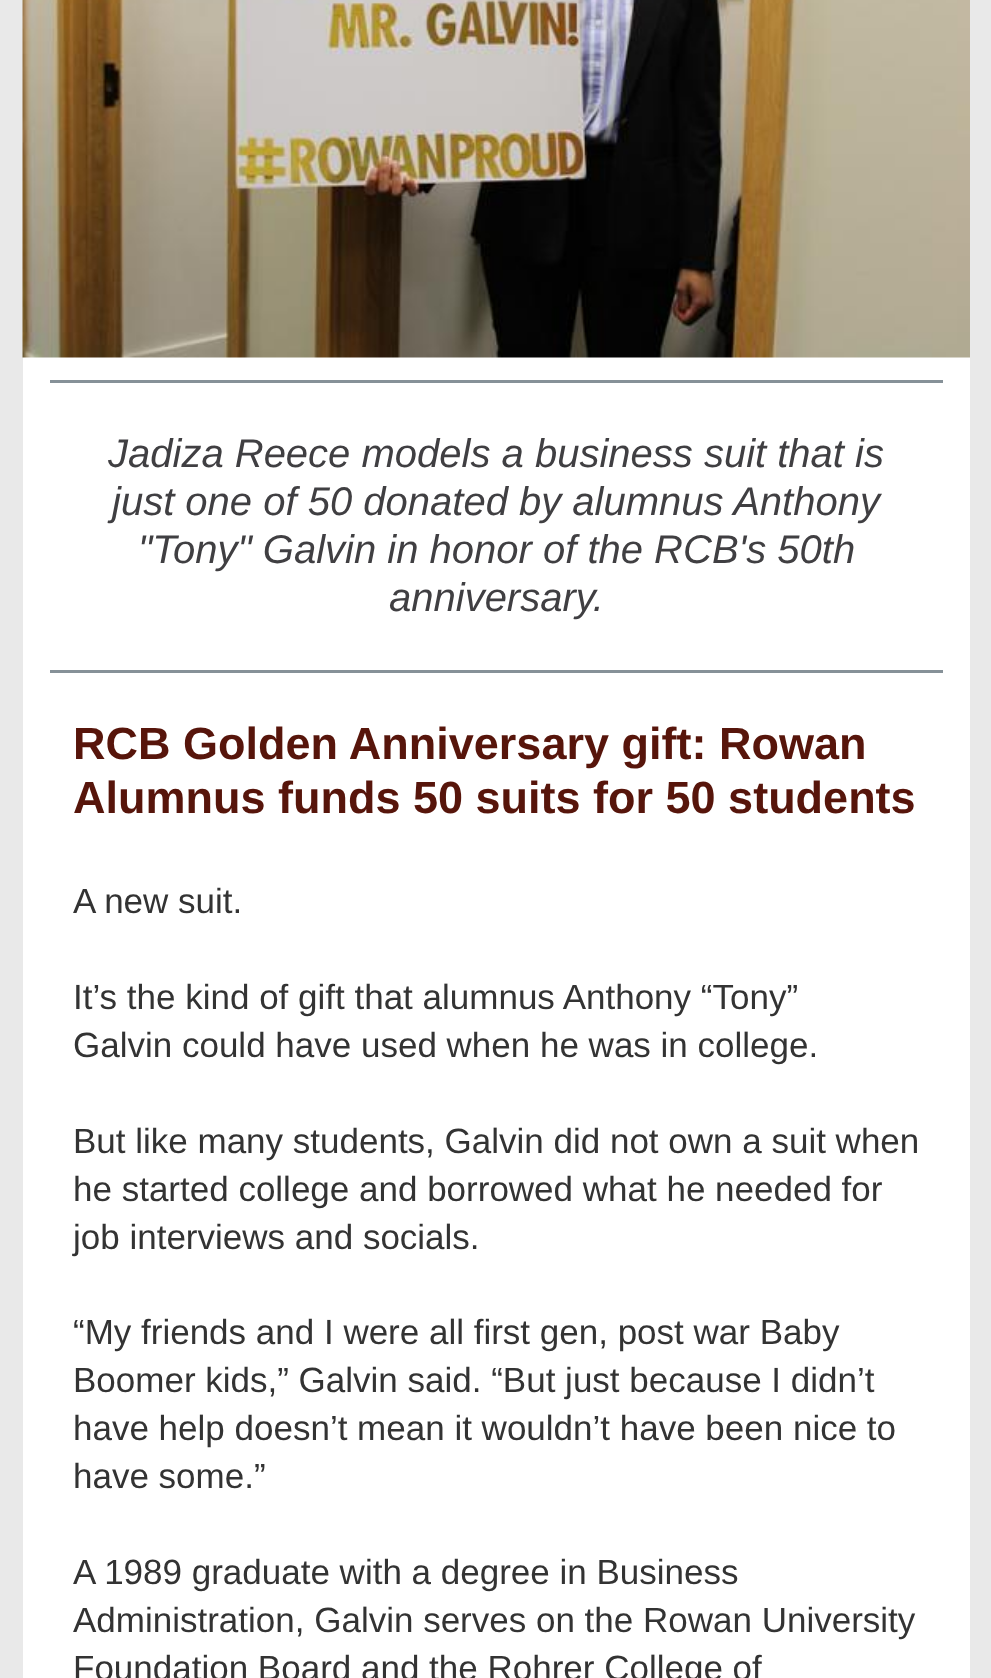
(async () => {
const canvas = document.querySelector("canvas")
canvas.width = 991
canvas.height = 1678
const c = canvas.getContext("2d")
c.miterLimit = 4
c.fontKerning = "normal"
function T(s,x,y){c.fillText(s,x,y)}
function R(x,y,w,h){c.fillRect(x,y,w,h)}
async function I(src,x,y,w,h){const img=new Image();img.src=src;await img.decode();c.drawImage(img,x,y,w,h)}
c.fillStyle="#e9e9e9"
R(0,0,991,1678)
c.fillStyle="#fff"
R(23,357,947,1321)
await I("1.png",22,0,948,358)
c.fillStyle="#869198"
R(50,380,893,3)
c.font="italic 40px Liberation Sans"
c.fillStyle="#403f42"
T("Jadiza Reece models a business suit that is",108,467)
T("just one of 50 donated by alumnus Anthony",112,515)
T("\"Tony\" Galvin in honor of the RCB's 50th",138,563)
T("anniversary.",389,611)
c.fillStyle="#869198"
R(50,670,893,3)
c.font="bold 45px Liberation Sans"
c.fillStyle="#57150b"
T("RCB Golden Anniversary gift: Rowan",73,759)
T("Alumnus funds 50 suits for 50 students",73,813)
c.font="35px Liberation Sans"
c.fillStyle="#333"
T("A new suit.",73,913)
T("It’s the kind of gift that alumnus Anthony “Tony”",73,1009)
T("Galvin could have used when he was in college.",73,1057)
T("But like many students, Galvin did not own a suit when",73,1153)
T("he started college and borrowed what he needed for",73,1201)
T("job interviews and socials.",73,1249)
T("“My friends and I were all first gen, post war Baby",73,1344)
T("Boomer kids,” Galvin said. “But just because I didn’t",73,1392)
T("have help doesn’t mean it wouldn’t have been nice to",73,1440)
T("have some.”",73,1488)
T("A 1989 graduate with a degree in Business",73,1584)
T("Administration, Galvin serves on the Rowan University",73,1632)
T("Foundation Board and the Rohrer College of",73,1680)
})()
